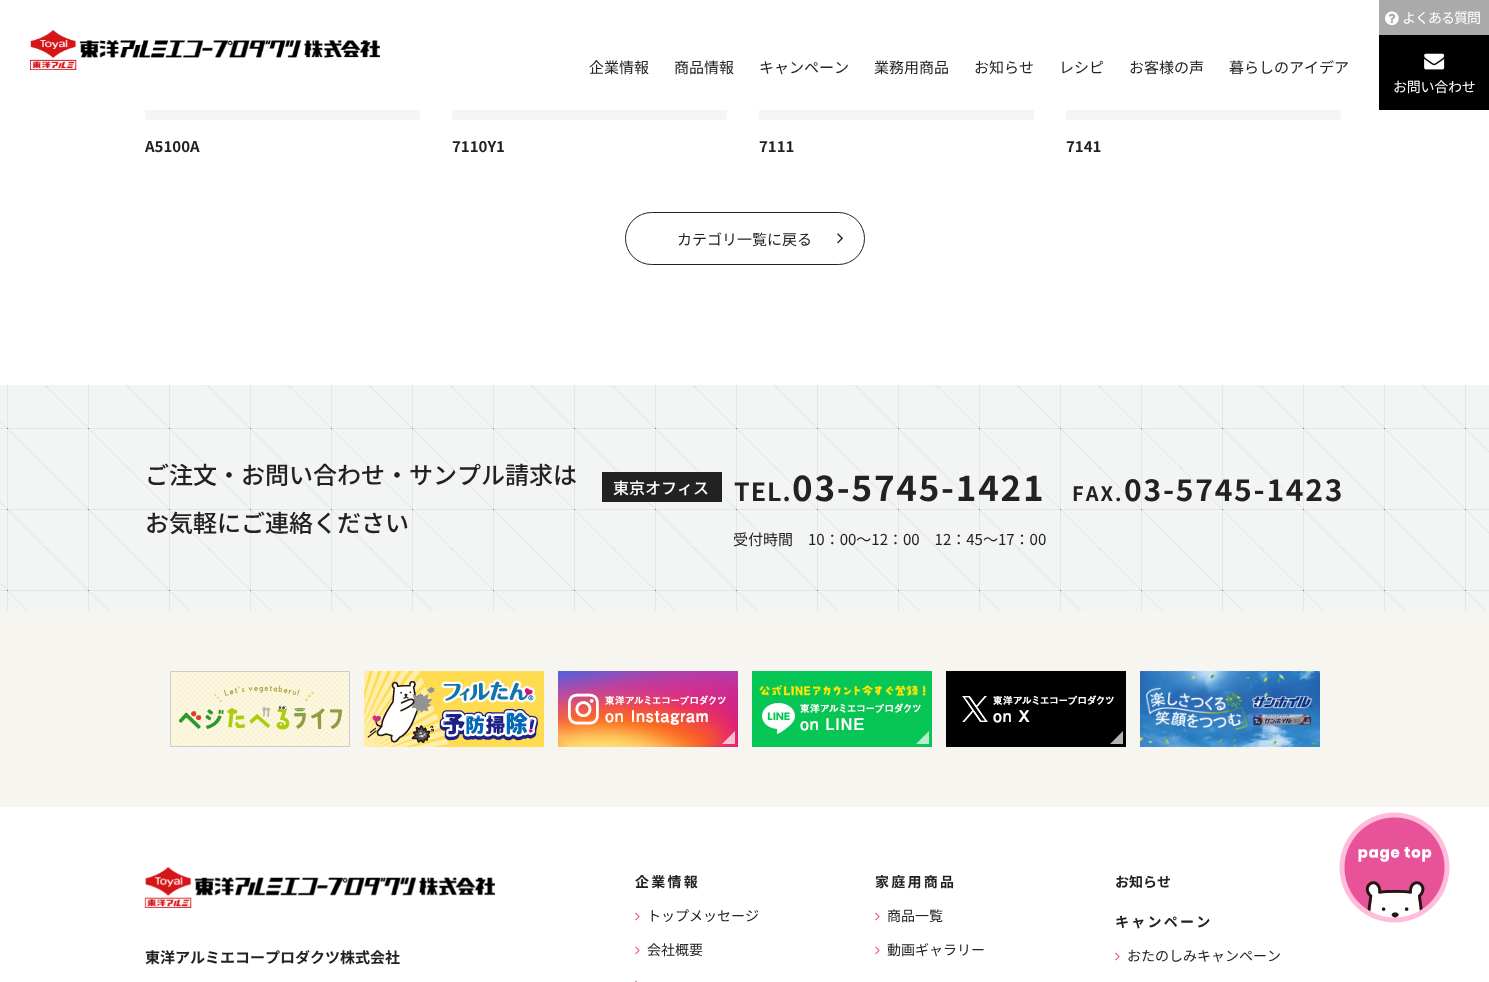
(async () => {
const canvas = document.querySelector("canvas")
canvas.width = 1489
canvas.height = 982
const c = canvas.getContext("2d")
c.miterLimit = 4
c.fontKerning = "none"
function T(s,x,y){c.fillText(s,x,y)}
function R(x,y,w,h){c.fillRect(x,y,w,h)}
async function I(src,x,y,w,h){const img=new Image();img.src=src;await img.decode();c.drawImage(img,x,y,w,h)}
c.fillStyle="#fff"
R(0,0,1489,982)
await I("1.png",30,30,350,40)
c.font="15px Noto Sans JP"
c.fillStyle="#222"
T("企業情報",589,73)
T("商品情報",674,73)
T("キャンペーン",759,73)
T("業務用商品",874,73)
T("お知らせ",974,73)
T("レシピ",1059,73)
T("お客様の声",1129,73)
T("暮らしのアイデア",1229,73)
c.fillStyle="#aaa"
R(1379,0,110,35)
await I("2.png",1385,11,14,15)
c.letterSpacing="-1px"
c.font="14px Noto Sans JP"
c.fillStyle="#fff"
T("よくある質問",1402,23)
c.fillStyle="#000"
R(1379,35,110,75)
await I("3.png",1424,53,21,17)
c.letterSpacing="-0.25px"
c.fillStyle="#fff"
T("お問い合わせ",1393,92)
await I("4.png",145,110,275,10)
c.letterSpacing="0px"
c.font="bold 15px Noto Sans JP"
c.fillStyle="#222"
T("A5100A",145,152)
await I("5.png",452,110,275,10)
T("7110Y1",452,152)
await I("5.png",759,110,275,10)
T("7111",759,152)
await I("5.png",1066,110,275,10)
T("7141",1066,152)
c.beginPath()
c.roundRect(625.5,212.5,239,52,26)
c.strokeStyle="#222"
c.stroke()
c.font="15px Noto Sans JP"
T("カテゴリ一覧に戻る",677,245)
await I("6.png",837,233,6,11)
await I("7.png",0,385,1489,226)
c.font="500 24px Noto Sans JP"
T("ご注文・お問い合わせ・サンプル請求は",145,484)
T("お気軽にご連絡ください",145,532)
R(602,472,120,30)
c.font="500 16px Noto Sans JP"
c.fillStyle="#fff"
T("東京オフィス",613,494)
c.letterSpacing="1px"
c.font="bold 25px Noto Sans JP"
c.fillStyle="#222"
T("TEL.",734,501)
c.letterSpacing="1.75px"
c.font="bold 35px Noto Sans JP"
T("03-5745-1421",792,501)
c.letterSpacing="2px"
c.font="bold 20px Noto Sans JP"
T("FAX.",1072,501)
c.letterSpacing="1.75px"
c.font="bold 30px Noto Sans JP"
T("03-5745-1423",1124,501)
c.letterSpacing="0px"
c.font="15px Noto Sans JP"
T("受付時間　10：00～12：00　12：45～17：00",733,545)
c.fillStyle="#f7f5f0"
R(0,611,1489,196)
await I("8.png",170,671,180,76)
await I("9.png",364,671,180,76)
await I("10.png",558,671,180,76)
await I("11.png",752,671,180,76)
await I("12.png",946,671,180,76)
await I("13.png",1140,671,180,76)
await I("14.png",144,867,351,41)
c.font="bold 15px Noto Sans JP"
c.fillStyle="#222"
T("東洋アルミエコープロダクツ株式会社",145,963)
c.letterSpacing="2.25px"
c.font="bold 14px Noto Sans JP"
T("企業情報",635,887)
await I("15.png",635,912,5,9)
c.letterSpacing="0px"
c.font="14px Noto Sans JP"
T("トップメッセージ",647,921)
await I("15.png",635,946,5,9)
T("会社概要",647,955)
await I("16.png",635,980,3,2)
c.letterSpacing="2.25px"
c.font="bold 14px Noto Sans JP"
T("家庭用商品",875,887)
await I("15.png",875,912,5,9)
c.letterSpacing="0px"
c.font="14px Noto Sans JP"
T("商品一覧",887,921)
await I("15.png",875,946,5,9)
T("動画ギャラリー",887,955)
c.font="bold 14px Noto Sans JP"
T("お知らせ",1115,887)
c.letterSpacing="2.25px"
T("キャンペーン",1115,927)
await I("15.png",1115,952,5,9)
c.letterSpacing="0px"
c.font="14px Noto Sans JP"
T("おたのしみキャンペーン",1127,961)
await I("17.png",1339,812,111,111)
})()
